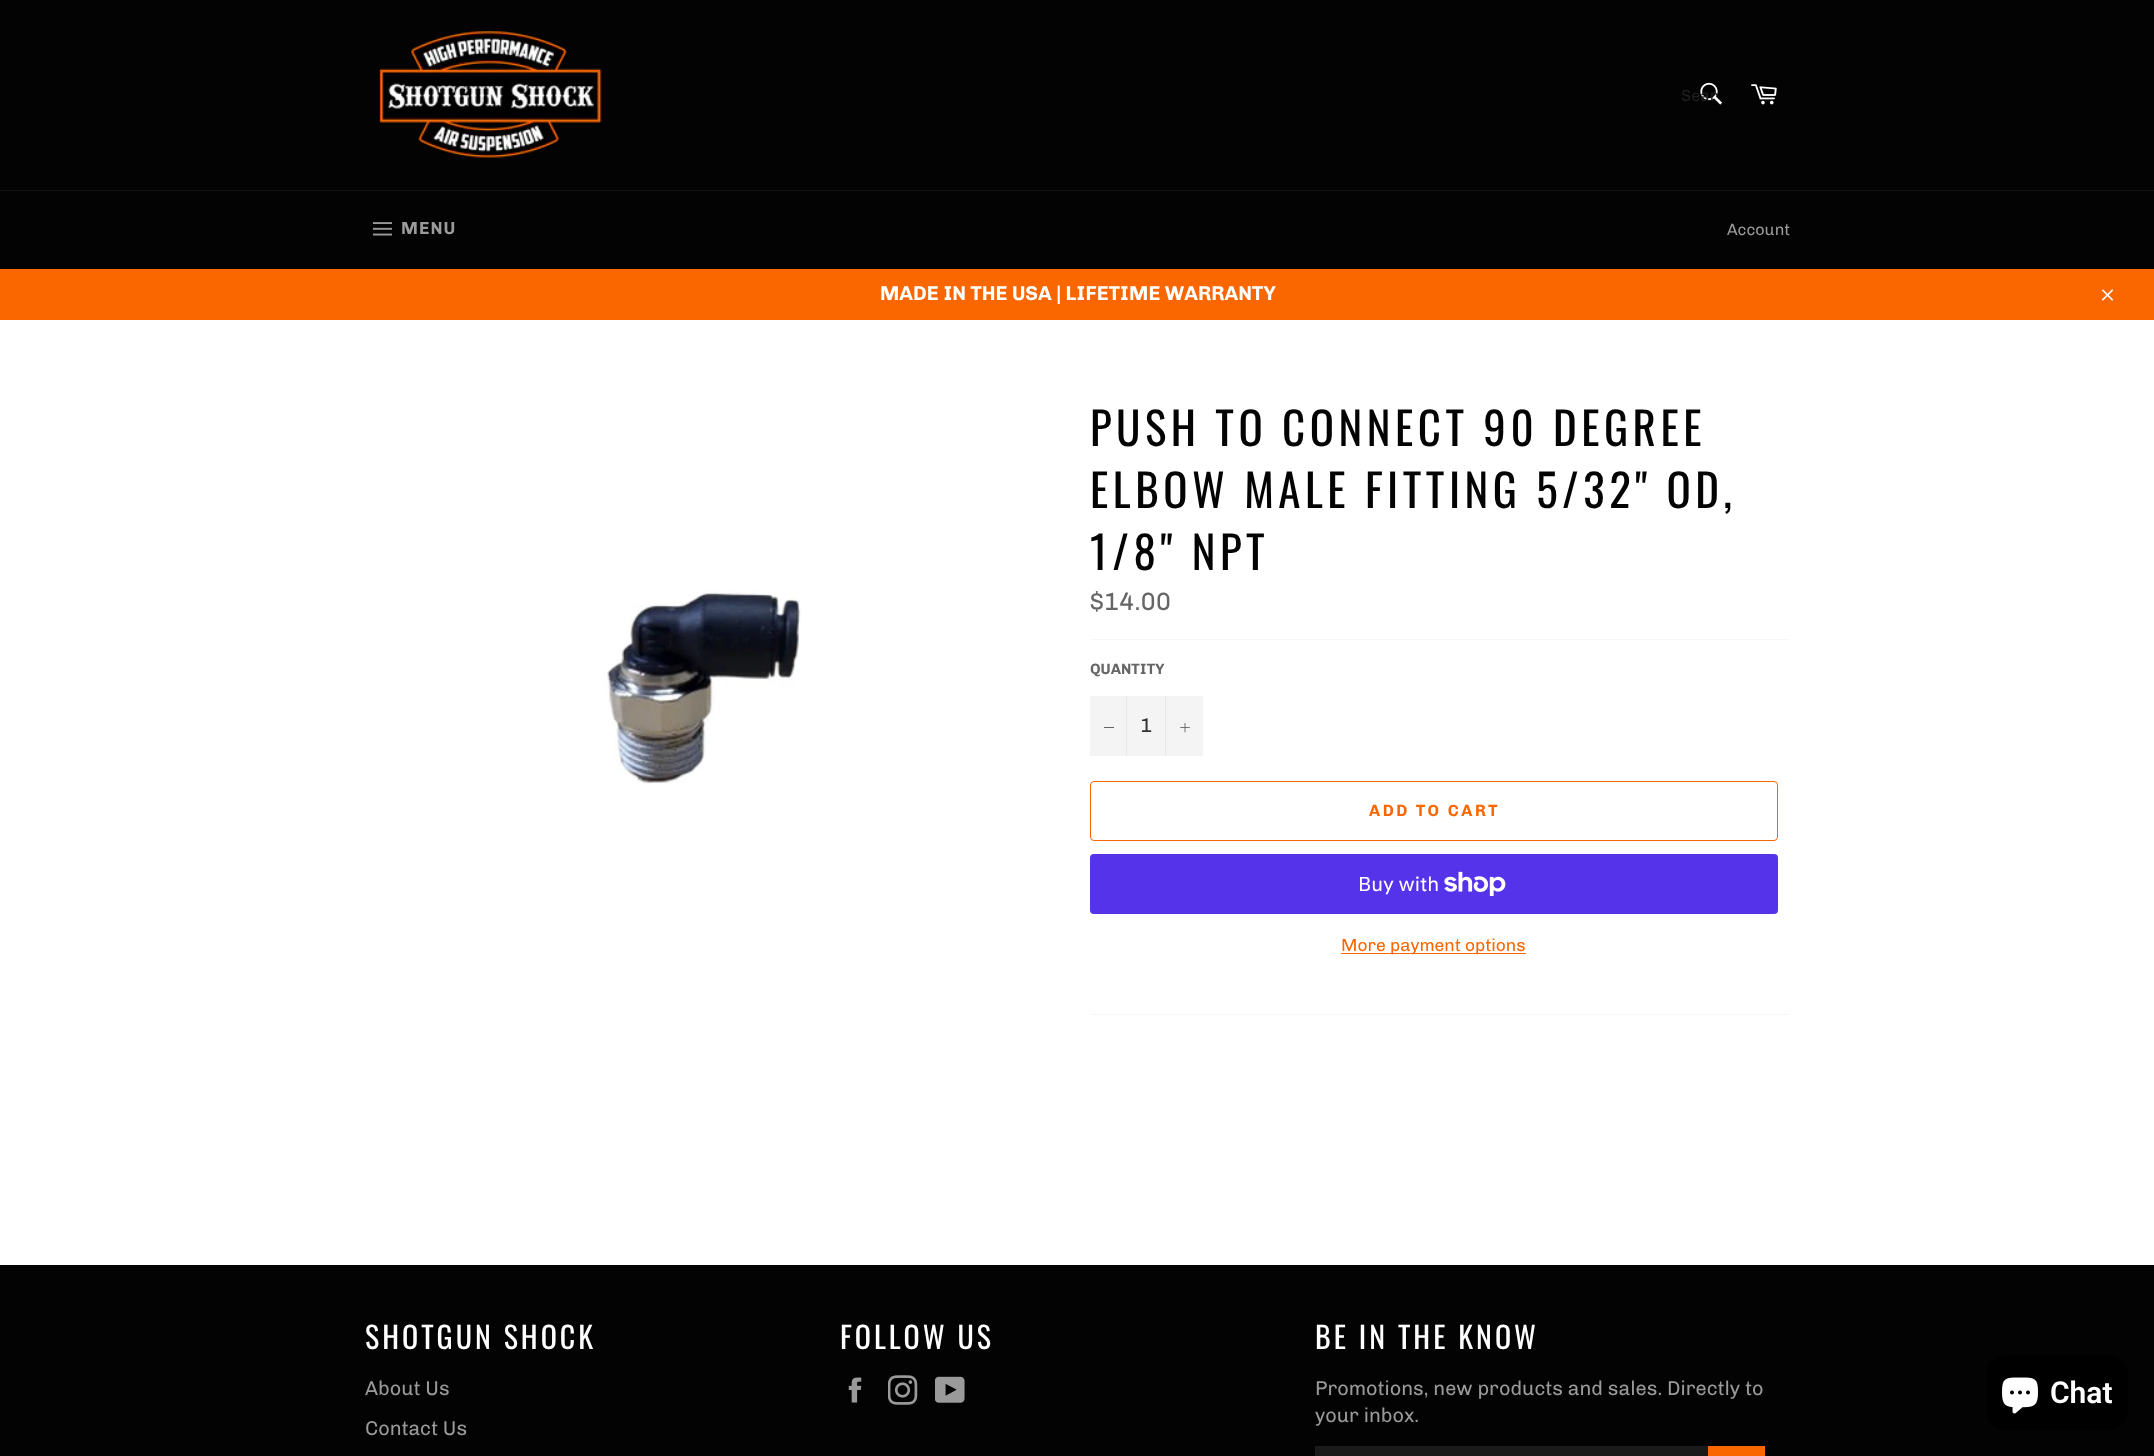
(async () => {
const canvas = document.querySelector("canvas")
canvas.width = 2154
canvas.height = 1456
const c = canvas.getContext("2d")
c.miterLimit = 4
c.fontKerning = "normal"
function T(s,x,y){c.fillText(s,x,y)}
function R(x,y,w,h){c.fillRect(x,y,w,h)}
function Q(x,y,w,h,r){c.beginPath();c.roundRect(x,y,w,h,r);c.fill()}
async function I(src,x,y,w,h){const img=new Image();img.src=src;await img.decode();c.drawImage(img,x,y,w,h)}
c.fillStyle="#030303"
R(0,0,2154,1456)
await I("1.png",379,30,223,128)
await I("2.png",1700,82,22,23)
c.font="16.25px 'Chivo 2'"
c.fillStyle="#1f1f1f"
T("Sear",1681,101)
await I("3.png",1751,84,26,21)
c.fillStyle="#101010"
R(0,190,2154,1)
await I("4.png",372,222,21,14)
c.letterSpacing="1px"
c.font="17.5px Chivo"
c.fillStyle="#9a9a9a"
T("MENU",401,234)
c.letterSpacing="0px"
c.font="16.25px 'Chivo 2'"
T("Account",1727,235)
c.fillStyle="#fa6600"
R(0,269,2154,51)
c.font="20px Chivo"
c.fillStyle="#fff"
T("MADE IN THE USA | LIFETIME WARRANTY",880,300)
await I("5.png",2101,289,13,12)
R(0,320,2154,945)
await I("6.png",605,590,196,194)
c.letterSpacing="4.5px"
c.font="45px Oswald"
c.fillStyle="#030303"
T("PUSH TO CONNECT 90 DEGREE",1090,446)
T("ELBOW MALE FITTING 5/32\" OD,",1090,508)
T("1/8\" NPT",1090,570)
c.letterSpacing="0px"
c.font="25px 'Chivo 2'"
c.fillStyle="#666"
T("$14.00",1090,610)
c.fillStyle="#f7f7f7"
R(1090,639,700,1)
c.font="15px Chivo"
c.fillStyle="#666"
T("QUANTITY",1090,674)
c.fillStyle="#f4f4f4"
R(1090,696,113,60)
c.fillStyle="#e7e7e7"
R(1126,696,1,60)
c.fillStyle="#666"
R(1104,727,10,1)
c.font="20px 'Chivo 2'"
c.fillStyle="#333"
T("1",1140,732)
c.fillStyle="#e7e7e7"
R(1165,696,1,60)
await I("7.png",1180,723,10,10)
c.beginPath()
c.roundRect(1090.5,781.5,687,59,3.5)
c.strokeStyle="#fa6600"
c.stroke()
c.letterSpacing="2.5px"
c.font="16.25px Chivo"
c.fillStyle="#fa6600"
T("ADD TO CART",1369,816)
c.fillStyle="#5433eb"
Q(1090,854,688,60,4)
c.letterSpacing="0px"
c.font="20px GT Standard"
c.fillStyle="#fff"
T("Buy with",1358,891)
await I("8.png",1444,871,62,25)
c.fillStyle="#fa6600"
R(1341,953,185,1)
c.font="17.5px 'Chivo 2'"
T("More payment options",1341,951)
c.fillStyle="#f7f7f7"
R(1090,1014,700,1)
c.letterSpacing="3px"
c.font="30px Oswald"
c.fillStyle="#fff"
T("SHOTGUN SHOCK",365,1349)
c.letterSpacing="0px"
c.font="20px 'Chivo 2'"
c.fillStyle="#9a9a9a"
T("About Us",365,1395)
T("Contact Us",365,1435)
c.letterSpacing="3px"
c.font="30px Oswald"
c.fillStyle="#fff"
T("FOLLOW US",840,1349)
await I("9.png",848,1377,14,26)
await I("10.png",888,1375,30,30)
await I("11.png",935,1376,30,27)
T("BE IN THE KNOW",1315,1349)
c.letterSpacing="0px"
c.font="20px 'Chivo 2'"
c.fillStyle="#9a9a9a"
T("Promotions, new products and sales. Directly to",1315,1395)
T("your inbox.",1315,1422)
c.fillStyle="#1a1a1a"
R(1315,1446,393,10)
c.fillStyle="#fa6600"
R(1708,1446,57,10)
c.fillStyle="#000"
Q(1986,1355,142,75,20)
await I("12.png",2002,1377,36,37)
c.font="600 30px Roboto"
c.fillStyle="#fff"
T("Chat",2050,1403)
})()
